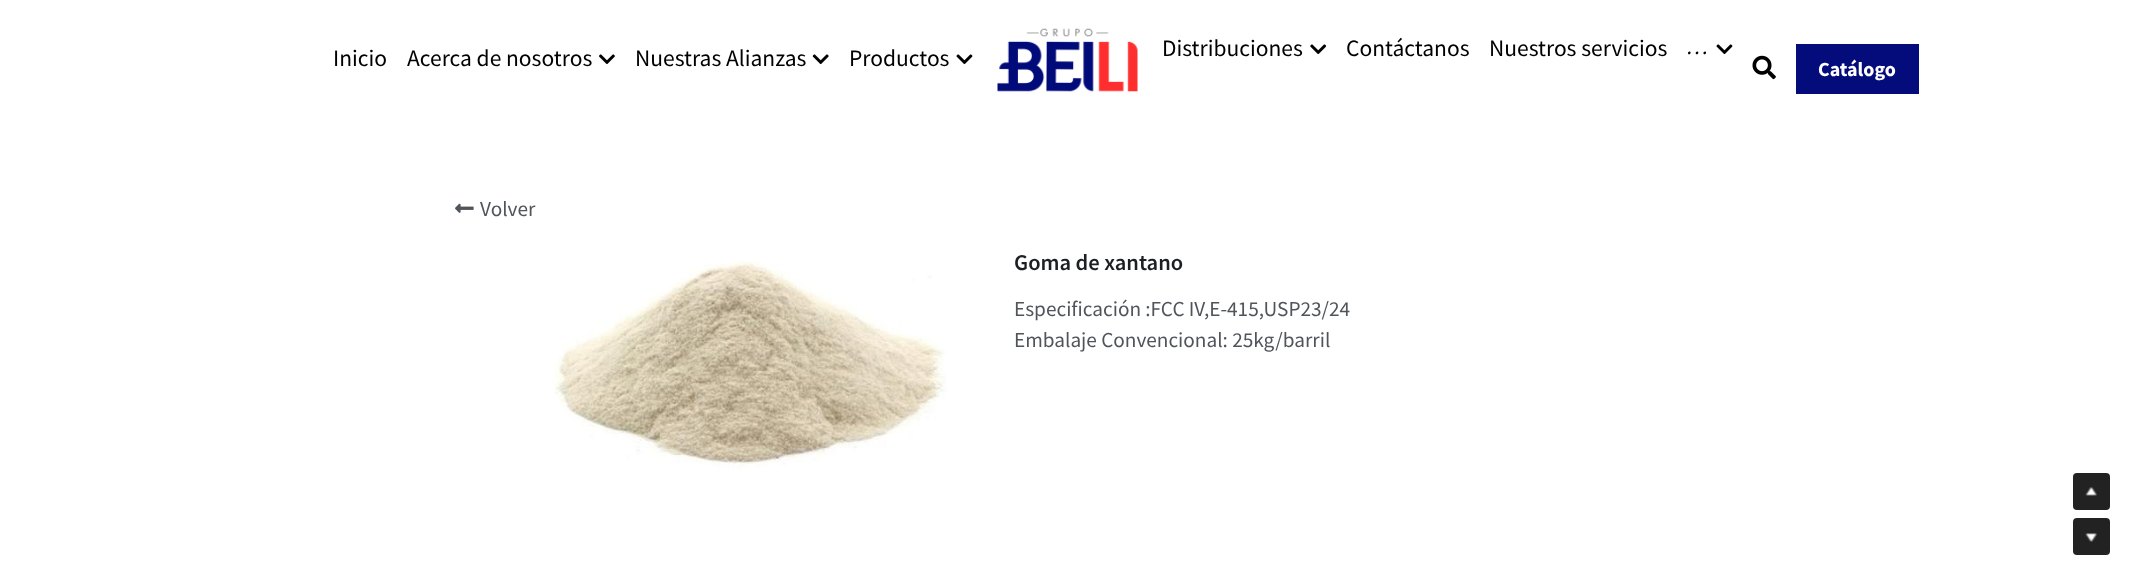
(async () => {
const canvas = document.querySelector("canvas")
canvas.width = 2134
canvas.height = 580
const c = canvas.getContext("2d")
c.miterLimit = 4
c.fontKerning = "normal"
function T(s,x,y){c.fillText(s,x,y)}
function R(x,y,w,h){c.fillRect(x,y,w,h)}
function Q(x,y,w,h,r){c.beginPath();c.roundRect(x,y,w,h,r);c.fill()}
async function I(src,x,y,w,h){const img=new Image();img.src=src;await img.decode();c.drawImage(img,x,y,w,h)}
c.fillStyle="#fff"
R(0,0,2134,580)
c.font="23.5px Source Sans Pro"
c.fillStyle="#000"
T("Inicio",333,66)
T("Acerca de nosotros",407,66)
await I("1.png",599,54,16,11)
T("Nuestras Alianzas",635,66)
await I("2.png",812,54,17,11)
T("Productos",849,66)
await I("3.png",956,54,17,11)
await I("4.png",997,28,141,64)
T("Distribuciones",1162,56)
await I("5.png",1310,44,17,11)
T("Contáctanos",1346,56)
T("Nuestros servicios",1489,56)
c.font="italic 23.5px Source Sans Pro"
T("…",1686,54)
await I("3.png",1716,44,17,11)
await I("6.png",1752,55,24,25)
c.fillStyle="#040b7b"
R(1796,44,123,50)
c.font="bold 20px Source Sans Pro"
c.fillStyle="#fff"
T("Catálogo",1818,76)
await I("7.png",455,203,19,10)
c.font="21.25px Source Sans Pro"
c.fillStyle="#50555c"
T("Volver",480,216)
await I("8.png",554,259,394,210)
c.font="600 22.5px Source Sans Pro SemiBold"
c.fillStyle="#1d2023"
T("Goma de xantano",1014,270)
c.font="21.25px Source Sans Pro"
c.fillStyle="#50555c"
T("Especificación :FCC IV,E-415,USP23/24",1014,316)
T("Embalaje Convencional: 25kg/barril",1014,347)
c.fillStyle="#222"
Q(2073,473,37,37,4)
await I("9.png",2085,487,12,9)
Q(2073,518,37,37,4)
await I("10.png",2085,533,12,9)
})()
